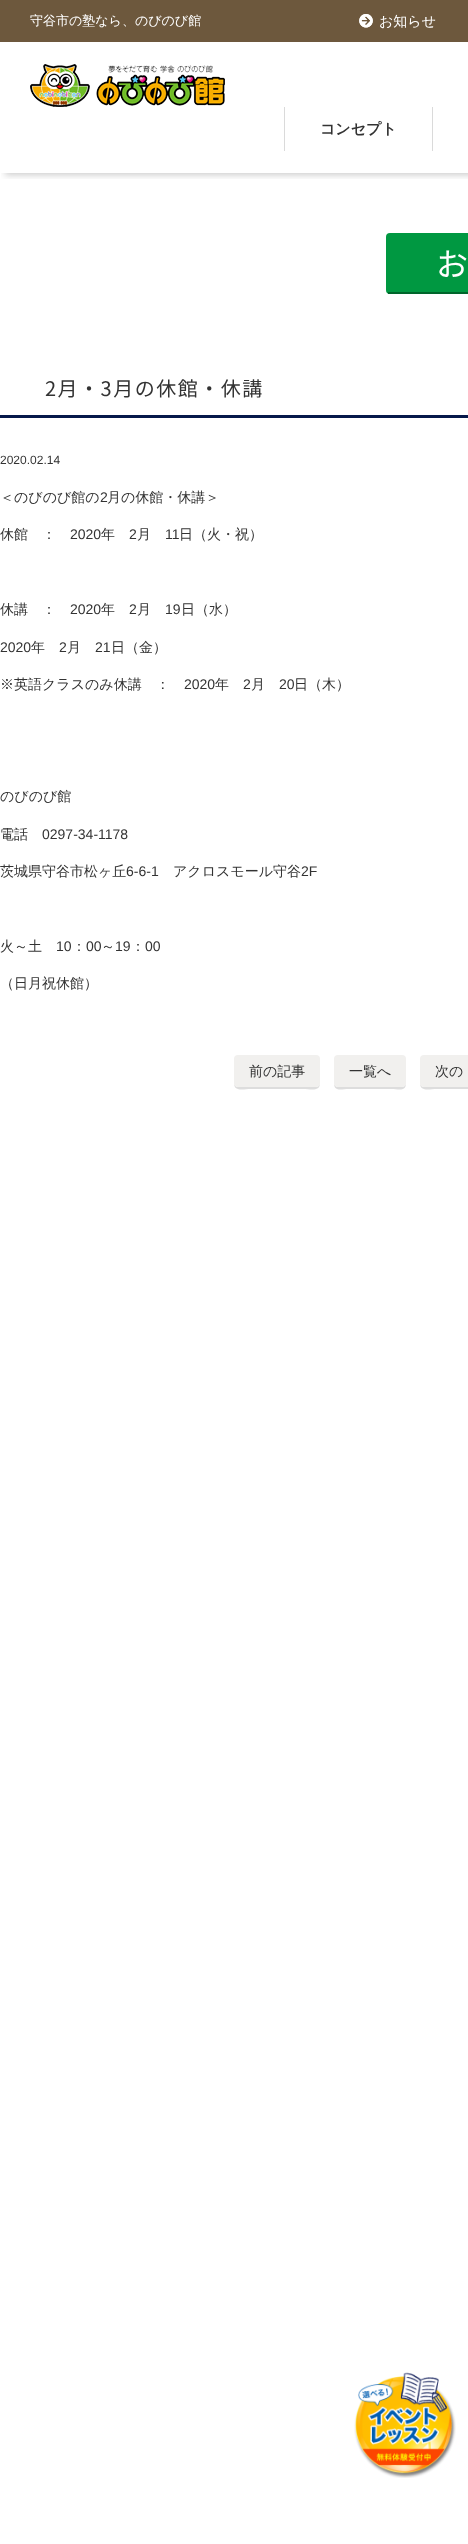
(async () => {
const canvas = document.querySelector("canvas")
canvas.width = 468
canvas.height = 2544
const c = canvas.getContext("2d")
c.miterLimit = 4
c.fontKerning = "normal"
function T(s,x,y){c.fillText(s,x,y)}
function R(x,y,w,h){c.fillRect(x,y,w,h)}
function Q(x,y,w,h,r){c.beginPath();c.roundRect(x,y,w,h,r);c.fill()}
async function I(src,x,y,w,h){const img=new Image();img.src=src;await img.decode();c.drawImage(img,x,y,w,h)}
let path
c.fillStyle="#fff"
R(0,0,468,2544)
c.fillStyle="#6d583d"
R(0,0,468,42)
c.font="500 13px WenQuanYi Zen Hei"
c.fillStyle="#fff"
T("守谷市の塾なら、のびのび館",30,25)
await I("1.png",359,14,14,14)
await I("2.png",359,14,14,14)
c.font="500 14px WenQuanYi Zen Hei"
T("お知らせ",379,26)
c.save()
c.beginPath()
c.rect(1,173,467,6)
c.clip()
c.fillStyle="#00000033"
c.filter="blur(3.5px)"
c.beginPath()
c.rect(5,54,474,121)
c.fill()
c.filter="none"
c.restore()
await I("3.png",30,64,195,43)
c.fillStyle="#dadada"
R(284,107,1,44)
c.font="bold 15px WenQuanYi Zen Hei"
c.fillStyle="#333"
T("コンセプト",320,134)
c.fillStyle="#dadada"
R(432,107,1,44)
c.fillStyle="#009841"
Q(386,233,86,61,4)
c.fillStyle="#00652b"
R(388,292,80,2)
c.letterSpacing="5px"
c.font="100 32px Noto Sans JP"
c.fillStyle="#fff"
T("お",436,276)
c.fillStyle="#06184a"
R(0,415,468,3)
c.letterSpacing="1.5px"
c.font="100 20px Noto Sans JP"
c.fillStyle="#333"
T("2月・3月の休館・休講",45,396)
c.letterSpacing="0px"
c.font="12px Liberation Sans"
T("2020.02.14",0,464)
c.font="500 14px WenQuanYi Zen Hei"
T("＜のびのび館の",0,502)
c.font="14px Liberation Sans"
T("2",100,502)
c.font="500 14px WenQuanYi Zen Hei"
T("月の休館・休講＞",107,502)
T("休館　：",0,539)
c.font="14px Liberation Sans"
T("2020",70,539)
c.font="500 14px WenQuanYi Zen Hei"
T("年",101,539)
c.font="14px Liberation Sans"
T("2",129,539)
c.font="500 14px WenQuanYi Zen Hei"
T("月",137,539)
c.font="14px Liberation Sans"
T("11",165,539)
c.font="500 14px WenQuanYi Zen Hei"
T("日（火・祝）",179,539)
T("休講　：",0,614)
c.font="14px Liberation Sans"
T("2020",70,614)
c.font="500 14px WenQuanYi Zen Hei"
T("年",101,614)
c.font="14px Liberation Sans"
T("2",129,614)
c.font="500 14px WenQuanYi Zen Hei"
T("月",137,614)
c.font="14px Liberation Sans"
T("19",165,614)
c.font="500 14px WenQuanYi Zen Hei"
T("日（水）",181,614)
c.font="14px Liberation Sans"
T("2020",0,652)
c.font="500 14px WenQuanYi Zen Hei"
T("年",31,652)
c.font="14px Liberation Sans"
T("2",59,652)
c.font="500 14px WenQuanYi Zen Hei"
T("月",67,652)
c.font="14px Liberation Sans"
T("21",95,652)
c.font="500 14px WenQuanYi Zen Hei"
T("日（金）",111,652)
T("※英語クラスのみ休講　：",0,689)
c.font="14px Liberation Sans"
T("2020",184,689)
c.font="500 14px WenQuanYi Zen Hei"
T("年",215,689)
c.font="14px Liberation Sans"
T("2",243,689)
c.font="500 14px WenQuanYi Zen Hei"
T("月",251,689)
c.font="14px Liberation Sans"
T("20",279,689)
c.font="500 14px WenQuanYi Zen Hei"
T("日（木）",294,689)
T("のびのび館",0,801)
T("電話",0,839)
c.font="14px Liberation Sans"
T("0297-34-1178",42,839)
c.font="500 14px WenQuanYi Zen Hei"
T("茨城県守谷市松ヶ丘",0,876)
c.font="14px Liberation Sans"
T("6-6-1",126,876)
c.font="500 14px WenQuanYi Zen Hei"
T("アクロスモール守谷",173,876)
c.font="14px Liberation Sans"
T("2F",301,876)
c.font="500 14px WenQuanYi Zen Hei"
T("火～土",0,951)
c.font="14px Liberation Sans"
T("10",56,951)
c.font="500 14px WenQuanYi Zen Hei"
T("：",72,951)
c.font="14px Liberation Sans"
T("00",86,951)
c.font="500 14px WenQuanYi Zen Hei"
T("～",101,951)
c.font="14px Liberation Sans"
T("19",115,951)
c.font="500 14px WenQuanYi Zen Hei"
T("：",131,951)
c.font="14px Liberation Sans"
T("00",145,951)
c.font="500 14px WenQuanYi Zen Hei"
T("（日月祝休館）",0,988)
c.fillStyle="#ddd"
path = new Path2D("M234 1083c0 9 9 6 17 6h52c8 0 17 3 17-6c0 2-2 4-4 4h-78c-2 0-4-2-4-4z")
c.fill(path)
c.fillStyle="#f1f0ee"
Q(234,1055,86,32,4)
c.fillStyle="#333"
T("前の記事",249,1076)
c.fillStyle="#ddd"
path = new Path2D("M334 1083c0 9 7 6 15 6h42c8 0 15 3 15-6c0 2-2 4-4 4h-64c-2 0-4-2-4-4z")
c.fill(path)
c.fillStyle="#f1f0ee"
Q(334,1055,72,32,4)
c.fillStyle="#333"
T("一覧へ",349,1076)
c.fillStyle="#ddd"
path = new Path2D("M420 1083c0 9 9 6 17 6h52c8 0 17 3 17-6c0 2-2 4-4 4h-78c-2 0-4-2-4-4z")
c.fill(path)
c.fillStyle="#f1f0ee"
Q(420,1055,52,32,4)
c.fillStyle="#333"
T("次の",435,1076)
await I("4.png",354,2372,102,106)
})()
